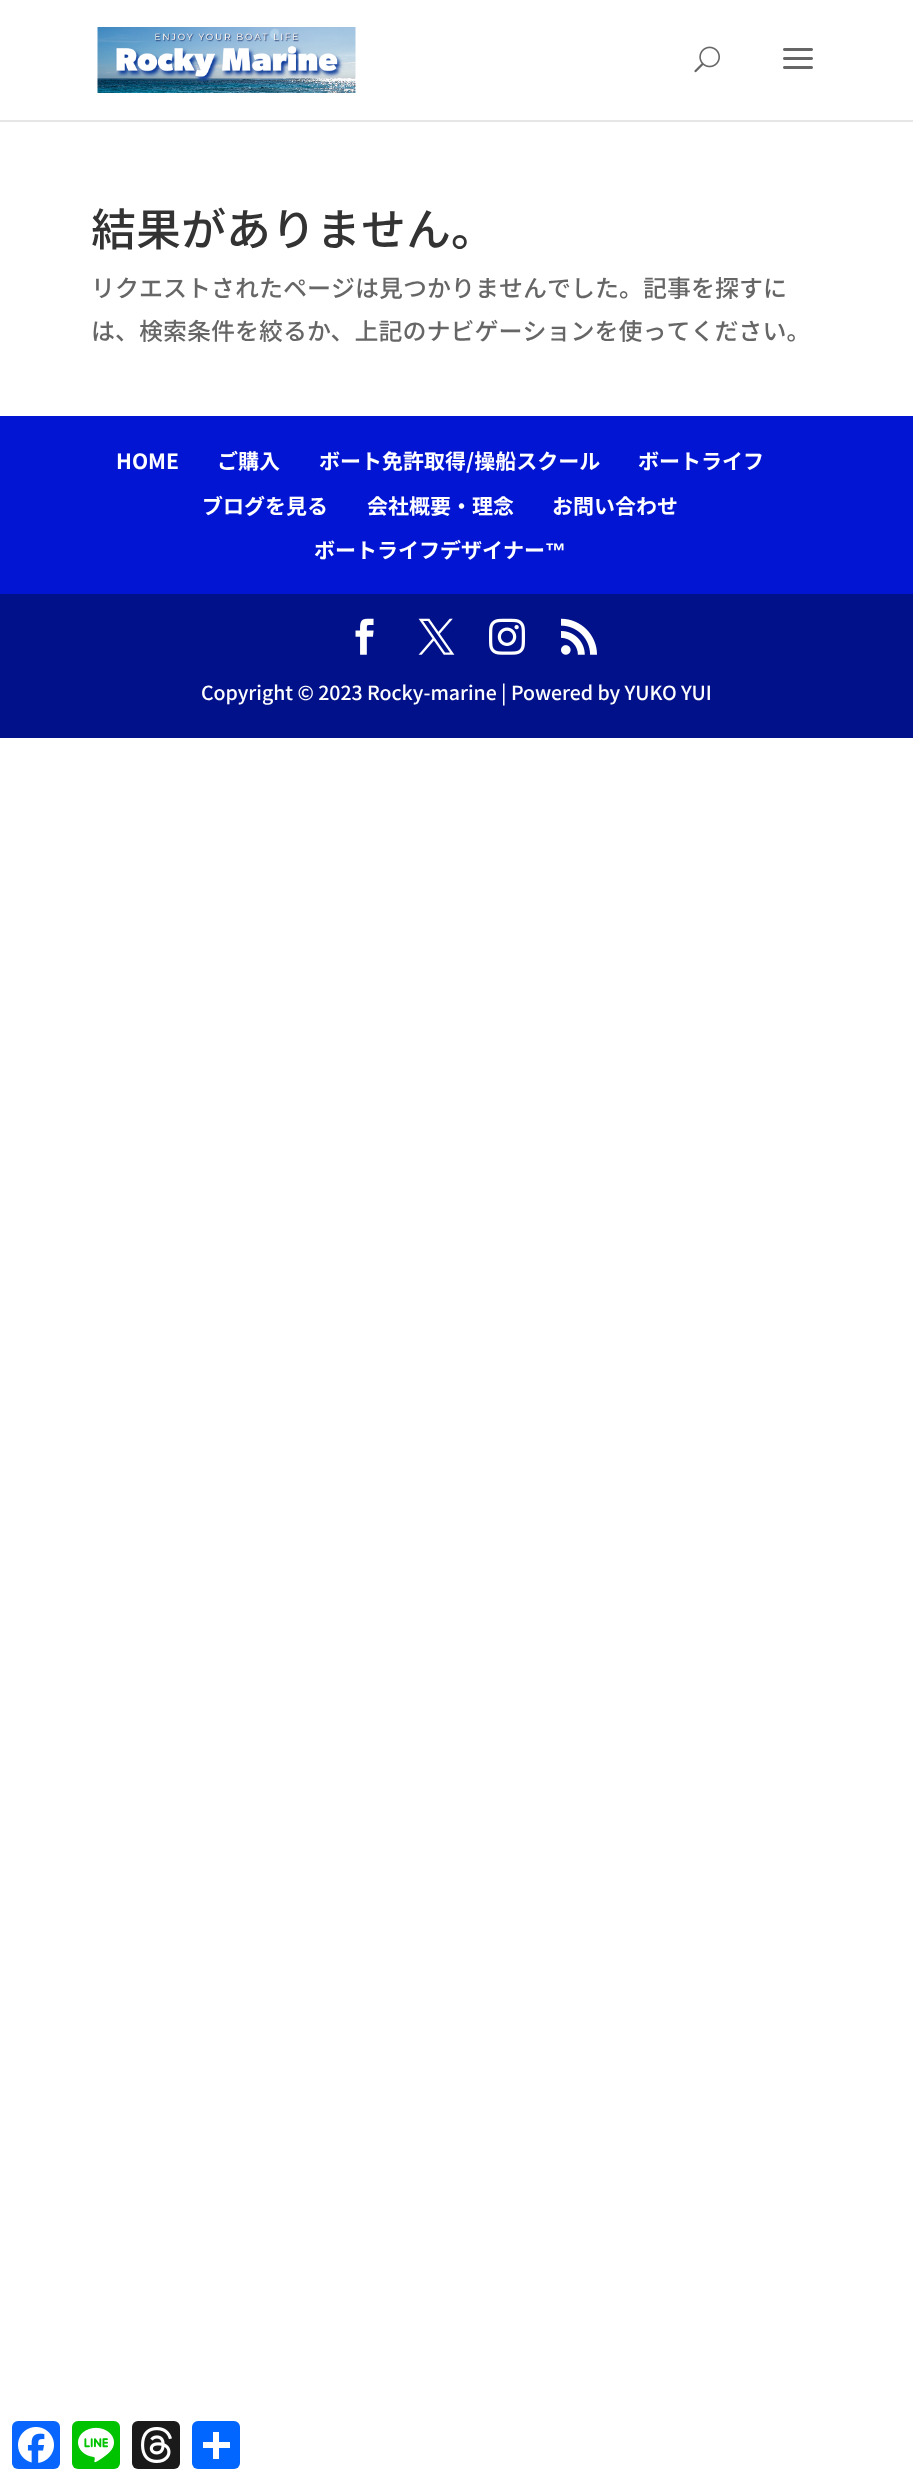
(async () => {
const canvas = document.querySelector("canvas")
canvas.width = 913
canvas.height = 2481
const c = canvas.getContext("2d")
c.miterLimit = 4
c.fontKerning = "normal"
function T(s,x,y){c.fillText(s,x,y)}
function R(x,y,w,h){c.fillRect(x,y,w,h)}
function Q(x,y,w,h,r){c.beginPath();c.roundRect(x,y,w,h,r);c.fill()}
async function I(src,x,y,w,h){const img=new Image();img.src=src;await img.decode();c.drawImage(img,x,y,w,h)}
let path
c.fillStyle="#fff"
R(0,0,913,2481)
c.fillStyle="#e6e6e6"
path = new Path2D("M0 120v2h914v-120v118z")
c.fill(path)
await I("1.png",97,27,259,66)
await I("2.png",694,46,26,27)
await I("3.png",783,48,30,21)
c.font="500 45px Noto Sans JP"
c.fillStyle="#333"
T("結果がありません。",91,246)
c.font="500 24px Noto Sans JP"
c.fillStyle="#666"
T("リクエストされたページは見つかりませんでした。記事を探すに",91,297)
T("は、検索条件を絞るか、上記のナビゲーションを使ってください。",91,340)
c.fillStyle="#0115d2"
R(0,416,913,178)
c.font="bold 21px Noto Sans JP"
c.fillStyle="#fff"
T("HOME",116,469)
T("ご購入",217,469)
T("ボート免許取得/操船スクール",319,469)
T("ボートライフ",638,469)
T("ブログを見る",202,514)
T("会社概要・理念",367,514)
T("お問い合わせ",552,514)
T("ボートライフデザイナー",314,558)
c.font="bold 21px Liberation Sans"
T("™",545,558)
c.fillStyle="#011189"
R(0,594,913,144)
await I("4.png",355,618,19,37)
await I("5.png",418,618,37,37)
await I("6.png",489,618,36,37)
await I("7.png",561,618,36,37)
c.font="500 19.5px Noto Sans JP"
c.fillStyle="#fff"
T("Copyright © 2023 Rocky-marine | Powered by YUKO YUI",201,700)
c.fillStyle="#0866ff"
Q(12,2421,48,48,6)
await I("8.png",18,2427,36,36)
c.fillStyle="#00c300"
Q(72,2421,48,48,6)
await I("9.png",78,2427,36,36)
c.fillStyle="#1a1a1a"
Q(132,2421,48,48,6)
await I("10.png",141,2427,31,36)
c.fillStyle="#0166ff"
Q(192,2421,48,48,6)
c.fillStyle="#fff"
R(213,2432,6,27)
R(203,2442,27,6)
})()
